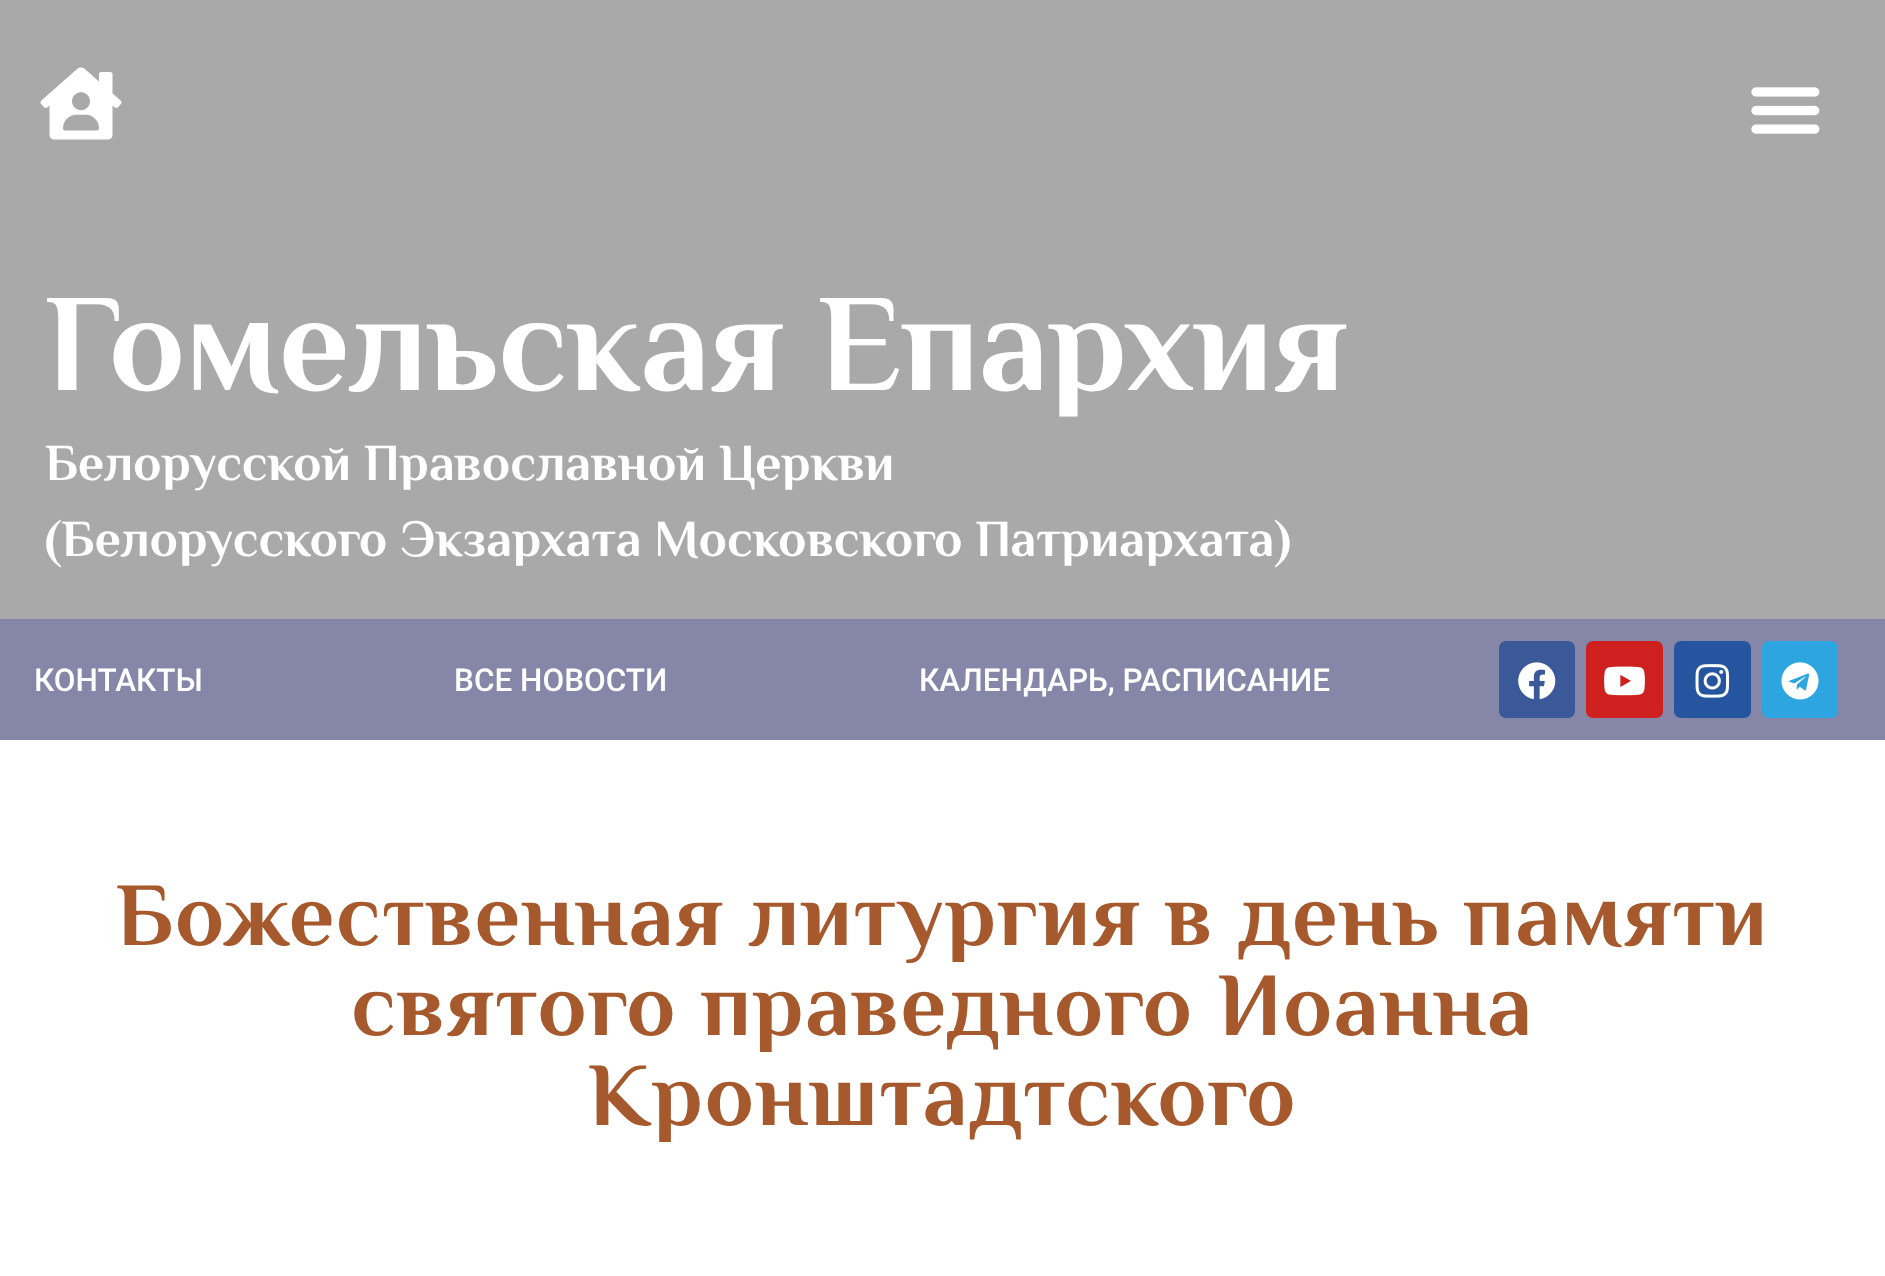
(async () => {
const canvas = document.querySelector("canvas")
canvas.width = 1885
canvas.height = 1276
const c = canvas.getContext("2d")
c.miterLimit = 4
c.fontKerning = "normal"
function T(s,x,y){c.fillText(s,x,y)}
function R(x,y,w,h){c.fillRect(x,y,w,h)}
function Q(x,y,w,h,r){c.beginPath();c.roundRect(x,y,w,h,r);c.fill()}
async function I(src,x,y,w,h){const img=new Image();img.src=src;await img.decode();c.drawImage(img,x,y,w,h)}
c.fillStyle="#fff"
R(0,0,1885,1276)
c.fillStyle="#aaa9a9"
R(0,0,1885,619)
await I("1.png",40,67,82,73)
await I("2.png",1751,87,69,47)
c.font="bold 139.5px Philosopher"
c.fillStyle="#fff"
T("Гомельская Епархия",45,390)
c.font="bold 51.75px Philosopher"
T("Белорусской Православной Церкви",45,480)
T("(Белорусского Экзархата Московского Патриархата)",45,556)
c.fillStyle="#8686a8"
R(0,619,1885,121)
c.font="500 31.5px Roboto"
c.fillStyle="#fff"
T("КОНТАКТЫ",34,691)
T("ВСЕ НОВОСТИ",454,691)
T("КАЛЕНДАРЬ, РАСПИСАНИЕ",919,691)
c.fillStyle="#3b5998"
Q(1499,641,76,77,7)
await I("3.png",1518,662,38,38)
c.fillStyle="#cd201f"
Q(1586,641,77,77,7)
await I("4.png",1604,666,41,30)
c.fillStyle="#2655a0"
Q(1674,641,77,77,7)
await I("5.png",1695,664,35,34)
c.fillStyle="#2ca5e0"
Q(1762,641,76,77,7)
await I("6.png",1781,662,38,38)
c.letterSpacing="1.55px"
c.font="bold 90px Philosopher"
c.fillStyle="#a5592c"
T("Божественная литургия в день памяти",116,945)
T("святого праведного Иоанна",351,1035)
T("Кронштадтского",588,1125)
})()
